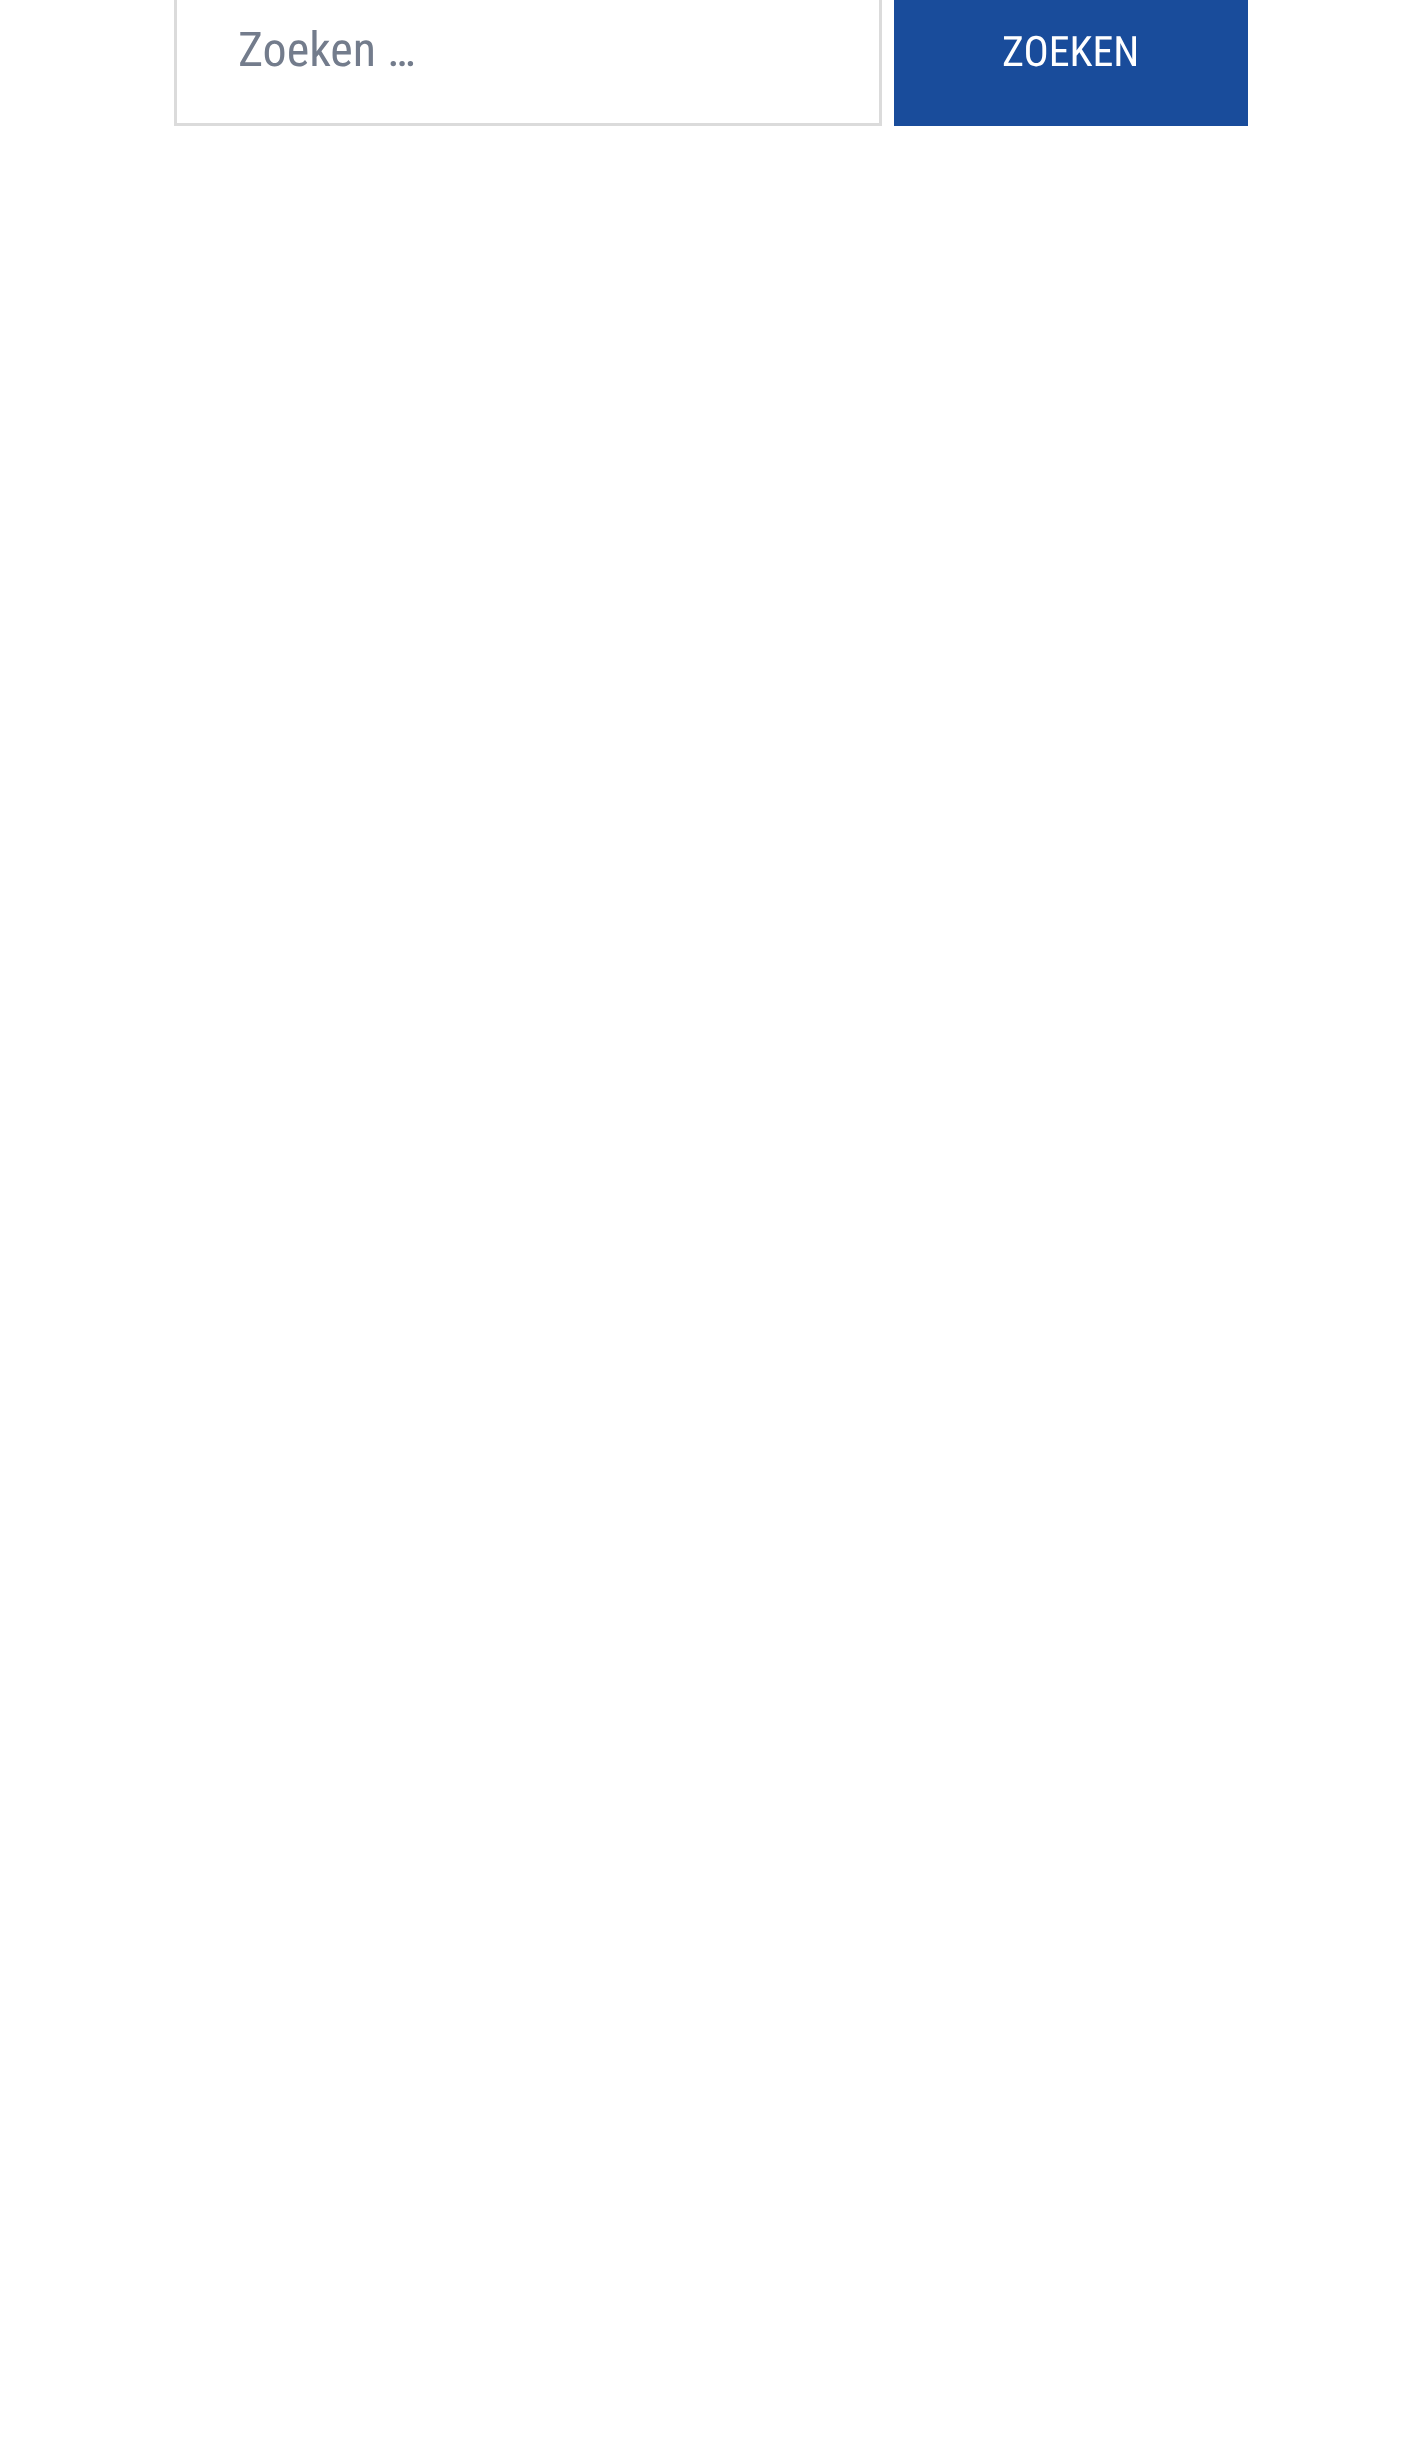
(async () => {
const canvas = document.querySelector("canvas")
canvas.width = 1422
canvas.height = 2452
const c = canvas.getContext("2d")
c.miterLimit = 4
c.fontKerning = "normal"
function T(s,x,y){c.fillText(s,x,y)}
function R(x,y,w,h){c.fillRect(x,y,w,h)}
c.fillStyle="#fff"
R(0,0,1422,2452)
c.strokeStyle="#dbdbdb"
c.lineWidth=3
c.strokeRect(175.5,-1.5,705,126)
c.font="48px Roboto Condensed"
c.fillStyle="#737c8c"
T("Zoeken …",238,66)
c.fillStyle="#194c9b"
R(894,0,354,126)
c.font="42px Roboto Condensed"
c.fillStyle="#fff"
T("ZOEKEN",1002,66)
})()
